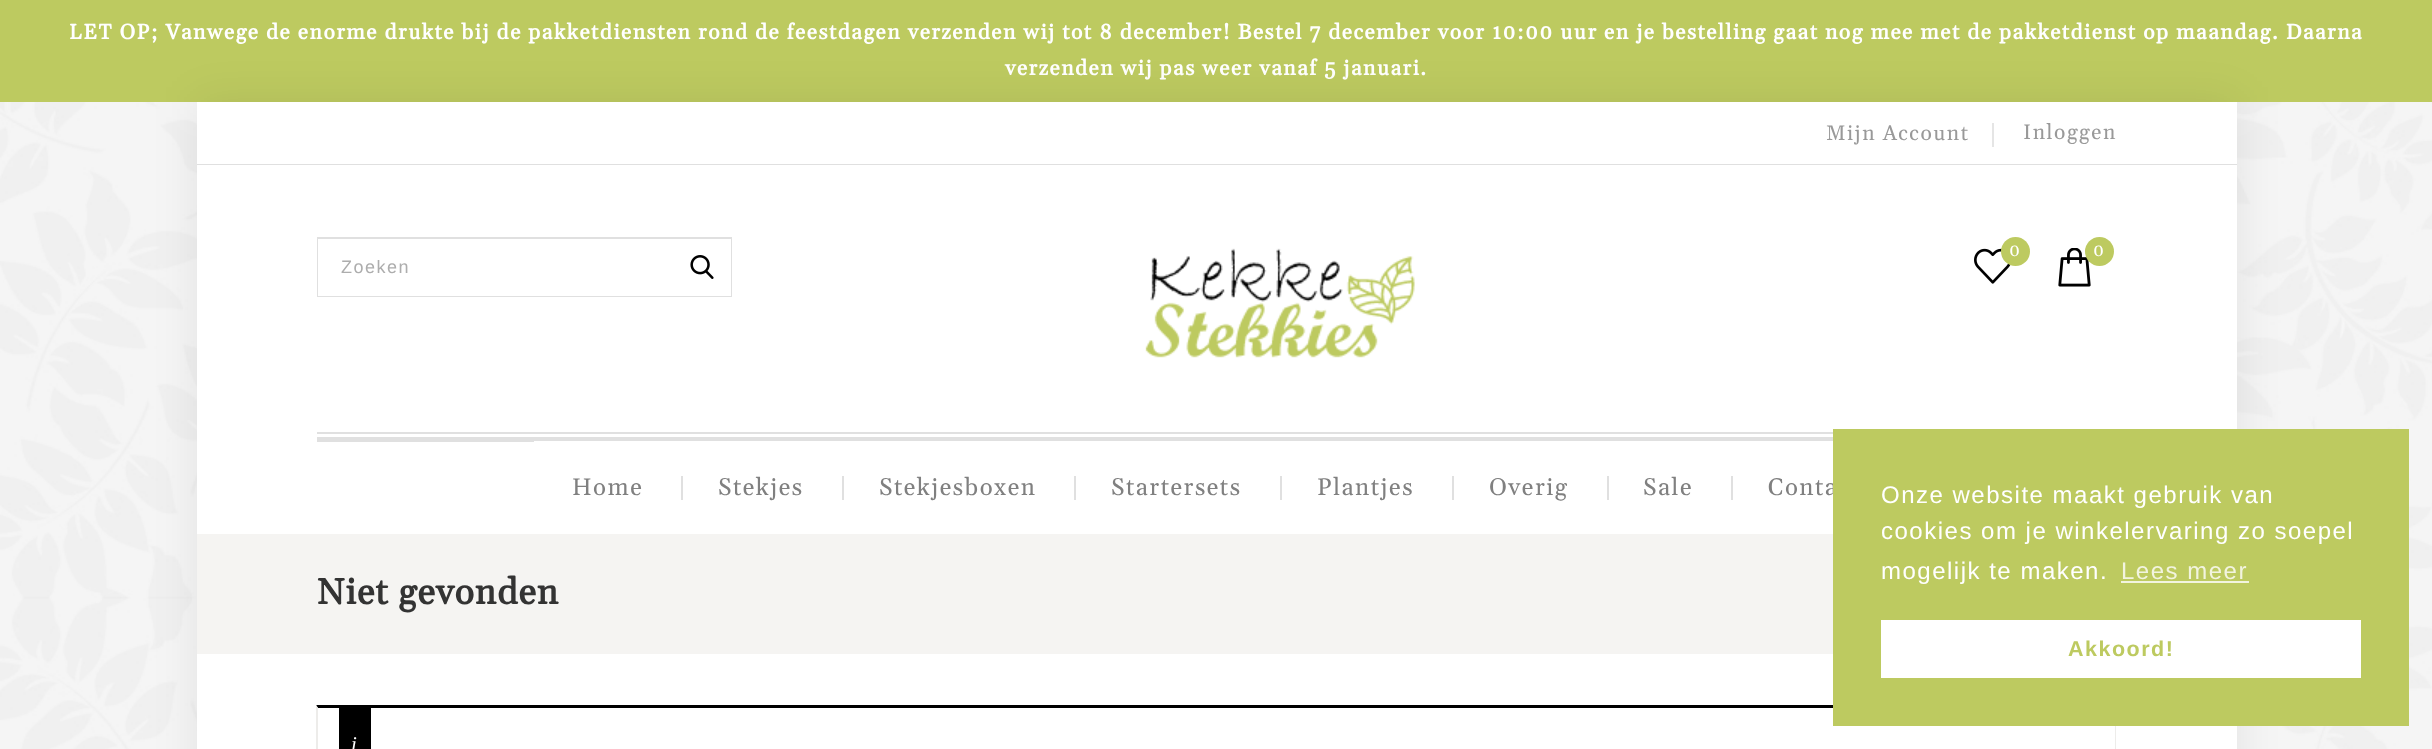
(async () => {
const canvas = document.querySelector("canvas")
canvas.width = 2432
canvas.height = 749
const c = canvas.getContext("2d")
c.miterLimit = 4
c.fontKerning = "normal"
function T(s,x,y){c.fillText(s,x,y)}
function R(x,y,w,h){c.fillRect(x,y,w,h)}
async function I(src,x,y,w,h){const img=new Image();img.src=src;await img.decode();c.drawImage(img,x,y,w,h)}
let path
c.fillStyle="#fff"
R(0,0,2432,749)
await I("1.png",0,102,2432,647)
c.fillStyle="#bdca60"
R(0,0,2432,102)
c.letterSpacing="1.5px"
c.font="bold 21px Gelasio"
c.fillStyle="#fff"
T("LET OP; Vanwege de enorme drukte bij de pakketdiensten rond de feestdagen verzenden wij tot 8 december! Bestel 7 december voor 10:00 uur en je bestelling gaat nog mee met de pakketdienst op maandag. Daarna",69,39)
T("verzenden wij pas weer vanaf 5 januari.",1005,75)
c.fillStyle="#00000014"
c.filter="blur(22.5px)"
c.beginPath()
c.rect(197,102,2040,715)
c.fill()
c.filter="none"
c.fillStyle="#fff"
R(197,102,2040,647)
c.fillStyle="#e0e0e0"
R(197,164,2040,1)
c.fillStyle="#e5e5e5"
R(1992,123,2,24)
c.font="21px Gelasio"
c.fillStyle="#999"
T("Mijn Account",1826,140)
T("Inloggen",2023,139)
c.fillStyle="#e0e0e0"
R(317,432,1516,2)
c.strokeStyle="#e0e0e0"
c.lineWidth=2
c.strokeRect(318,238,413,58)
c.fillStyle="#fff"
R(318,239,413,57)
c.font="18px Liberation Sans"
c.fillStyle="#adadad"
T("Zoeken",341,273)
await I("2.png",690,255,24,24)
await I("3.png",1145,248,270,110)
await I("4.png",1974,248,37,36)
c.fillStyle="#bdca60"
c.beginPath()
c.arc(2015.5,251.5,14.5,0,7)
c.fill()
c.font="18px Gelasio"
c.fillStyle="#fff"
T("0",2009,256)
await I("5.png",2058,248,33,39)
c.fillStyle="#bdca60"
c.beginPath()
c.arc(2099.5,251.5,14.5,0,7)
c.fill()
c.fillStyle="#fff"
T("0",2093,256)
c.fillStyle="#e0e0e0"
R(317,437,1516,5)
c.fillStyle="#fff"
R(534,441,1299,1)
c.font="24px Gelasio"
c.fillStyle="#808080"
T("Home",572,495)
c.fillStyle="#e0e0e0"
R(681,476,2,24)
c.fillStyle="#808080"
T("Stekjes",718,495)
c.fillStyle="#e0e0e0"
R(842,476,2,24)
c.fillStyle="#808080"
T("Stekjesboxen",879,495)
c.fillStyle="#e0e0e0"
R(1074,476,2,24)
c.fillStyle="#808080"
T("Startersets",1111,495)
c.fillStyle="#e0e0e0"
R(1280,476,2,24)
c.fillStyle="#808080"
T("Plantjes",1317,495)
c.fillStyle="#e0e0e0"
R(1452,476,2,24)
c.fillStyle="#808080"
T("Overig",1489,495)
c.fillStyle="#e0e0e0"
R(1607,476,2,24)
c.fillStyle="#808080"
T("Sale",1643,495)
c.fillStyle="#e0e0e0"
R(1731,476,2,24)
c.fillStyle="#808080"
T("Conta",1768,495)
c.fillStyle="#f5f4f2"
R(197,534,1636,120)
c.letterSpacing="0.9px"
c.font="bold 36px Gelasio"
c.fillStyle="#333"
T("Niet gevonden",317,604)
c.fillStyle="#000"
path = new Path2D("M316 705h1800l-1 3h-1797z")
c.fill(path)
c.fillStyle="#edecea"
path = new Path2D("M2116 705v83l-1-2v-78z")
c.fill(path)
path = new Path2D("M316 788v-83l2 3v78z")
c.fill(path)
c.fillStyle="#000"
R(339,708,32,41)
c.letterSpacing="1.5px"
c.font="italic 21px Liberation Serif"
c.fillStyle="#fff"
T("i",351,751)
c.fillStyle="#bdca60"
R(1833,429,576,297)
c.font="24px Liberation Sans"
c.fillStyle="#fff"
T("Onze website maakt gebruik van",1881,503)
T("cookies om je winkelervaring zo soepel",1881,539)
T("mogelijk te maken.",1881,579)
c.fillStyle="#f2f4df"
T("Lees meer",2121,579)
R(2121,581,128,2)
c.fillStyle="#fff"
R(1881,620,480,58)
c.font="bold 21.5px Liberation Sans"
c.fillStyle="#bdca60"
T("Akkoord!",2068,656)
})()
